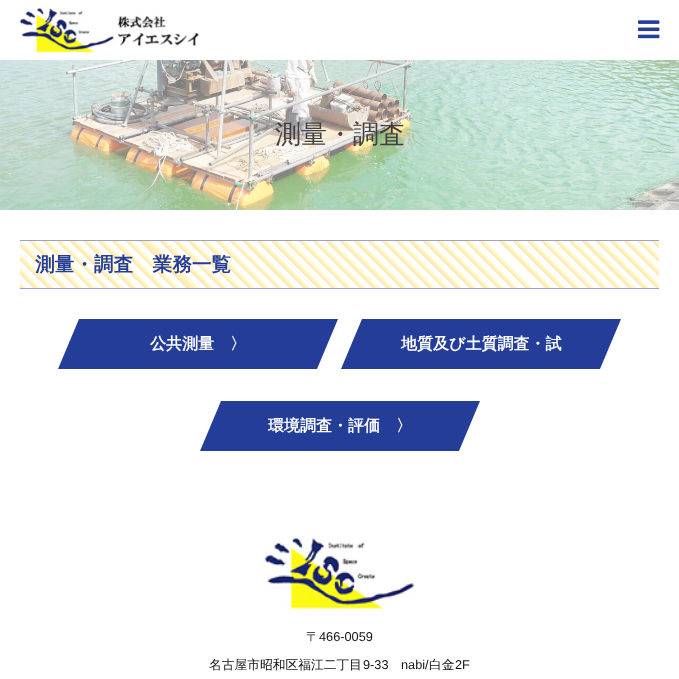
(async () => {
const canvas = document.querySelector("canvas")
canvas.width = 679
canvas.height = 679
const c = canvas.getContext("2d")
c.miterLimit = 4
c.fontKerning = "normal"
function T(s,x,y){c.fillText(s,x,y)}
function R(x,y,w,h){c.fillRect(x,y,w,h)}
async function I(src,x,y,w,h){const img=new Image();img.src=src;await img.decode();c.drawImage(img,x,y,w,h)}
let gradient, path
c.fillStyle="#fff"
R(0,0,679,679)
await I("1.png",20,7,179,46)
await I("2.png",638,20,22,19)
await I("3.png",0,60,679,150)
c.font="500 26px WenQuanYi Zen Hei"
c.fillStyle="#414141"
T("測量・調査",275,143)
gradient = c.createLinearGradient(168,436,514,90)
gradient.addColorStop(0,"#ffe5ab")
gradient.addColorStop(.01,"#fffed8")
gradient.addColorStop(.01,"#fff")
gradient.addColorStop(.02,"#fff")
gradient.addColorStop(.02,"#ffe5ab")
gradient.addColorStop(.03,"#fffed8")
gradient.addColorStop(.03,"#fff")
gradient.addColorStop(.04,"#fff")
gradient.addColorStop(.04,"#ffe5ab")
gradient.addColorStop(.05,"#fffed8")
gradient.addColorStop(.05,"#fff")
gradient.addColorStop(.06,"#fff")
gradient.addColorStop(.06,"#ffe5ab")
gradient.addColorStop(.07,"#fffed8")
gradient.addColorStop(.07,"#fff")
gradient.addColorStop(.08,"#fff")
gradient.addColorStop(.08,"#ffe5ab")
gradient.addColorStop(.09,"#fffed8")
gradient.addColorStop(.09,"#fff")
gradient.addColorStop(.1,"#fff")
gradient.addColorStop(.1,"#ffe5ab")
gradient.addColorStop(.11,"#fffed8")
gradient.addColorStop(.11,"#fff")
gradient.addColorStop(.12,"#fff")
gradient.addColorStop(.12,"#ffe5ab")
gradient.addColorStop(.13,"#fffed8")
gradient.addColorStop(.13,"#fff")
gradient.addColorStop(.14,"#fff")
gradient.addColorStop(.14,"#ffe5ab")
gradient.addColorStop(.15,"#fffed8")
gradient.addColorStop(.15,"#fff")
gradient.addColorStop(.16,"#fff")
gradient.addColorStop(.16,"#ffe5ab")
gradient.addColorStop(.17,"#fffed8")
gradient.addColorStop(.17,"#fff")
gradient.addColorStop(.18,"#fff")
gradient.addColorStop(.18,"#ffe5ab")
gradient.addColorStop(.19,"#fffed8")
gradient.addColorStop(.19,"#fff")
gradient.addColorStop(.2,"#fff")
gradient.addColorStop(.2,"#ffe5ab")
gradient.addColorStop(.21,"#fffed8")
gradient.addColorStop(.21,"#fff")
gradient.addColorStop(.22,"#fff")
gradient.addColorStop(.22,"#ffe5ab")
gradient.addColorStop(.23,"#fffed8")
gradient.addColorStop(.23,"#fff")
gradient.addColorStop(.24,"#fff")
gradient.addColorStop(.24,"#ffe5ab")
gradient.addColorStop(.26,"#fffed8")
gradient.addColorStop(.26,"#fff")
gradient.addColorStop(.27,"#fff")
gradient.addColorStop(.27,"#ffe5ab")
gradient.addColorStop(.28,"#fffed8")
gradient.addColorStop(.28,"#fff")
gradient.addColorStop(.29,"#fff")
gradient.addColorStop(.29,"#ffe5ab")
gradient.addColorStop(.3,"#fffed8")
gradient.addColorStop(.3,"#fff")
gradient.addColorStop(.31,"#fff")
gradient.addColorStop(.31,"#ffe5ab")
gradient.addColorStop(.32,"#fffed8")
gradient.addColorStop(.32,"#fff")
gradient.addColorStop(.33,"#fff")
gradient.addColorStop(.33,"#ffe5ab")
gradient.addColorStop(.34,"#fffed8")
gradient.addColorStop(.34,"#fff")
gradient.addColorStop(.35,"#fff")
gradient.addColorStop(.35,"#ffe5ab")
gradient.addColorStop(.36,"#fffed8")
gradient.addColorStop(.36,"#fff")
gradient.addColorStop(.37,"#fff")
gradient.addColorStop(.37,"#ffe5ab")
gradient.addColorStop(.38,"#fffed8")
gradient.addColorStop(.38,"#fff")
gradient.addColorStop(.39,"#fff")
gradient.addColorStop(.39,"#ffe5ab")
gradient.addColorStop(.4,"#fffed8")
gradient.addColorStop(.4,"#fff")
gradient.addColorStop(.41,"#fff")
gradient.addColorStop(.41,"#ffe5ab")
gradient.addColorStop(.42,"#fffed8")
gradient.addColorStop(.42,"#fff")
gradient.addColorStop(.43,"#fff")
gradient.addColorStop(.43,"#ffe5ab")
gradient.addColorStop(.44,"#fffed8")
gradient.addColorStop(.44,"#fff")
gradient.addColorStop(.45,"#fff")
gradient.addColorStop(.45,"#ffe5ab")
gradient.addColorStop(.46,"#fffed8")
gradient.addColorStop(.46,"#fff")
gradient.addColorStop(.47,"#fff")
gradient.addColorStop(.47,"#ffe5ab")
gradient.addColorStop(.48,"#fffed8")
gradient.addColorStop(.48,"#fff")
gradient.addColorStop(.49,"#fff")
gradient.addColorStop(.49,"#ffe5ab")
gradient.addColorStop(.5,"#fffed8")
gradient.addColorStop(.5,"#fff")
gradient.addColorStop(.51,"#fff")
gradient.addColorStop(.51,"#ffe5ab")
gradient.addColorStop(.52,"#fffed8")
gradient.addColorStop(.52,"#fff")
gradient.addColorStop(.53,"#fff")
gradient.addColorStop(.53,"#ffe5ab")
gradient.addColorStop(.54,"#fffed8")
gradient.addColorStop(.54,"#fff")
gradient.addColorStop(.55,"#fff")
gradient.addColorStop(.55,"#ffe5ab")
gradient.addColorStop(.56,"#fffed8")
gradient.addColorStop(.56,"#fff")
gradient.addColorStop(.57,"#fff")
gradient.addColorStop(.57,"#ffe5ab")
gradient.addColorStop(.58,"#fffed8")
gradient.addColorStop(.58,"#fff")
gradient.addColorStop(.59,"#fff")
gradient.addColorStop(.59,"#ffe5ab")
gradient.addColorStop(.6,"#fffed8")
gradient.addColorStop(.6,"#fff")
gradient.addColorStop(.61,"#fff")
gradient.addColorStop(.61,"#ffe5ab")
gradient.addColorStop(.62,"#fffed8")
gradient.addColorStop(.62,"#fff")
gradient.addColorStop(.63,"#fff")
gradient.addColorStop(.63,"#ffe5ab")
gradient.addColorStop(.64,"#fffed8")
gradient.addColorStop(.64,"#fff")
gradient.addColorStop(.65,"#fff")
gradient.addColorStop(.65,"#ffe5ab")
gradient.addColorStop(.66,"#fffed8")
gradient.addColorStop(.66,"#fff")
gradient.addColorStop(.67,"#fff")
gradient.addColorStop(.67,"#ffe5ab")
gradient.addColorStop(.68,"#fffed8")
gradient.addColorStop(.68,"#fff")
gradient.addColorStop(.69,"#fff")
gradient.addColorStop(.69,"#ffe5ab")
gradient.addColorStop(.7,"#fffed8")
gradient.addColorStop(.7,"#fff")
gradient.addColorStop(.71,"#fff")
gradient.addColorStop(.71,"#ffe5ab")
gradient.addColorStop(.72,"#fffed8")
gradient.addColorStop(.72,"#fff")
gradient.addColorStop(.73,"#fff")
gradient.addColorStop(.73,"#ffe5ab")
gradient.addColorStop(.74,"#fffed8")
gradient.addColorStop(.74,"#fff")
gradient.addColorStop(.76,"#fff")
gradient.addColorStop(.76,"#ffe5ab")
gradient.addColorStop(.77,"#fffed8")
gradient.addColorStop(.77,"#fff")
gradient.addColorStop(.78,"#fff")
gradient.addColorStop(.78,"#ffe5ab")
gradient.addColorStop(.79,"#fffed8")
gradient.addColorStop(.79,"#fff")
gradient.addColorStop(.8,"#fff")
gradient.addColorStop(.8,"#ffe5ab")
gradient.addColorStop(.81,"#fffed8")
gradient.addColorStop(.81,"#fff")
gradient.addColorStop(.82,"#fff")
gradient.addColorStop(.82,"#ffe5ab")
gradient.addColorStop(.83,"#fffed8")
gradient.addColorStop(.83,"#fff")
gradient.addColorStop(.84,"#fff")
gradient.addColorStop(.84,"#ffe5ab")
gradient.addColorStop(.85,"#fffed8")
gradient.addColorStop(.85,"#fff")
gradient.addColorStop(.86,"#fff")
gradient.addColorStop(.86,"#ffe5ab")
gradient.addColorStop(.87,"#fffed8")
gradient.addColorStop(.87,"#fff")
gradient.addColorStop(.88,"#fff")
gradient.addColorStop(.88,"#ffe5ab")
gradient.addColorStop(.89,"#fffed8")
gradient.addColorStop(.89,"#fff")
gradient.addColorStop(.9,"#fff")
gradient.addColorStop(.9,"#ffe5ab")
gradient.addColorStop(.91,"#fffed8")
gradient.addColorStop(.91,"#fff")
gradient.addColorStop(.92,"#fff")
gradient.addColorStop(.92,"#ffe5ab")
gradient.addColorStop(.93,"#fffed8")
gradient.addColorStop(.93,"#fff")
gradient.addColorStop(.94,"#fff")
gradient.addColorStop(.94,"#ffe5ab")
gradient.addColorStop(.95,"#fffed8")
gradient.addColorStop(.95,"#fff")
gradient.addColorStop(.96,"#fff")
gradient.addColorStop(.96,"#ffe5ab")
gradient.addColorStop(.97,"#fffed8")
gradient.addColorStop(.97,"#fff")
gradient.addColorStop(.98,"#fff")
gradient.addColorStop(.98,"#ffe5ab")
gradient.addColorStop(.99,"#fffed8")
gradient.addColorStop(.99,"#fff")
gradient.addColorStop(1,"#fff")
c.fillStyle = gradient
R(20,241,639,47)
c.fillStyle="#99a3c9"
R(20,240,639,1)
R(20,288,639,1)
c.font="bold 19.6px WenQuanYi Zen Hei"
c.fillStyle="#243d99"
T("測量・調査　業務一覧",35,271)
c.fillStyle="#233d98"
R(58,319,280,50)
c.fillStyle="#fff"
path = new Path2D("M58 369v-50h21z")
c.fill(path)
c.font="bold 16px WenQuanYi Zen Hei"
T("公共測量　〉",150,349)
c.fillStyle="#233d98"
R(341,319,280,50)
c.fillStyle="#fff"
path = new Path2D("M338 369h-21l21-50zm3 0v-50h21z")
c.fill(path)
T("地質及び土質調査・試",401,349)
path = new Path2D("M621 369h-21l21-50z")
c.fill(path)
c.fillStyle="#233d98"
R(200,401,280,50)
c.fillStyle="#fff"
path = new Path2D("M200 451v-50h21z")
c.fill(path)
T("環境調査・評価　〉",268,431)
path = new Path2D("M480 451h-21l21-50z")
c.fill(path)
await I("4.png",265,537,150,72)
c.font="500 12.75px WenQuanYi Zen Hei"
c.fillStyle="#121212"
T("〒",306,641)
c.font="12.75px Liberation Sans"
T("466-0059",319,641)
c.font="500 12.75px WenQuanYi Zen Hei"
T("名古屋市昭和区福江二丁目",209,669)
c.font="12.75px Liberation Sans"
T("9-33",363,669)
T("nabi/",401,669)
c.font="500 12.75px WenQuanYi Zen Hei"
T("白金",429,669)
c.font="12.75px Liberation Sans"
T("2F",455,669)
})()
